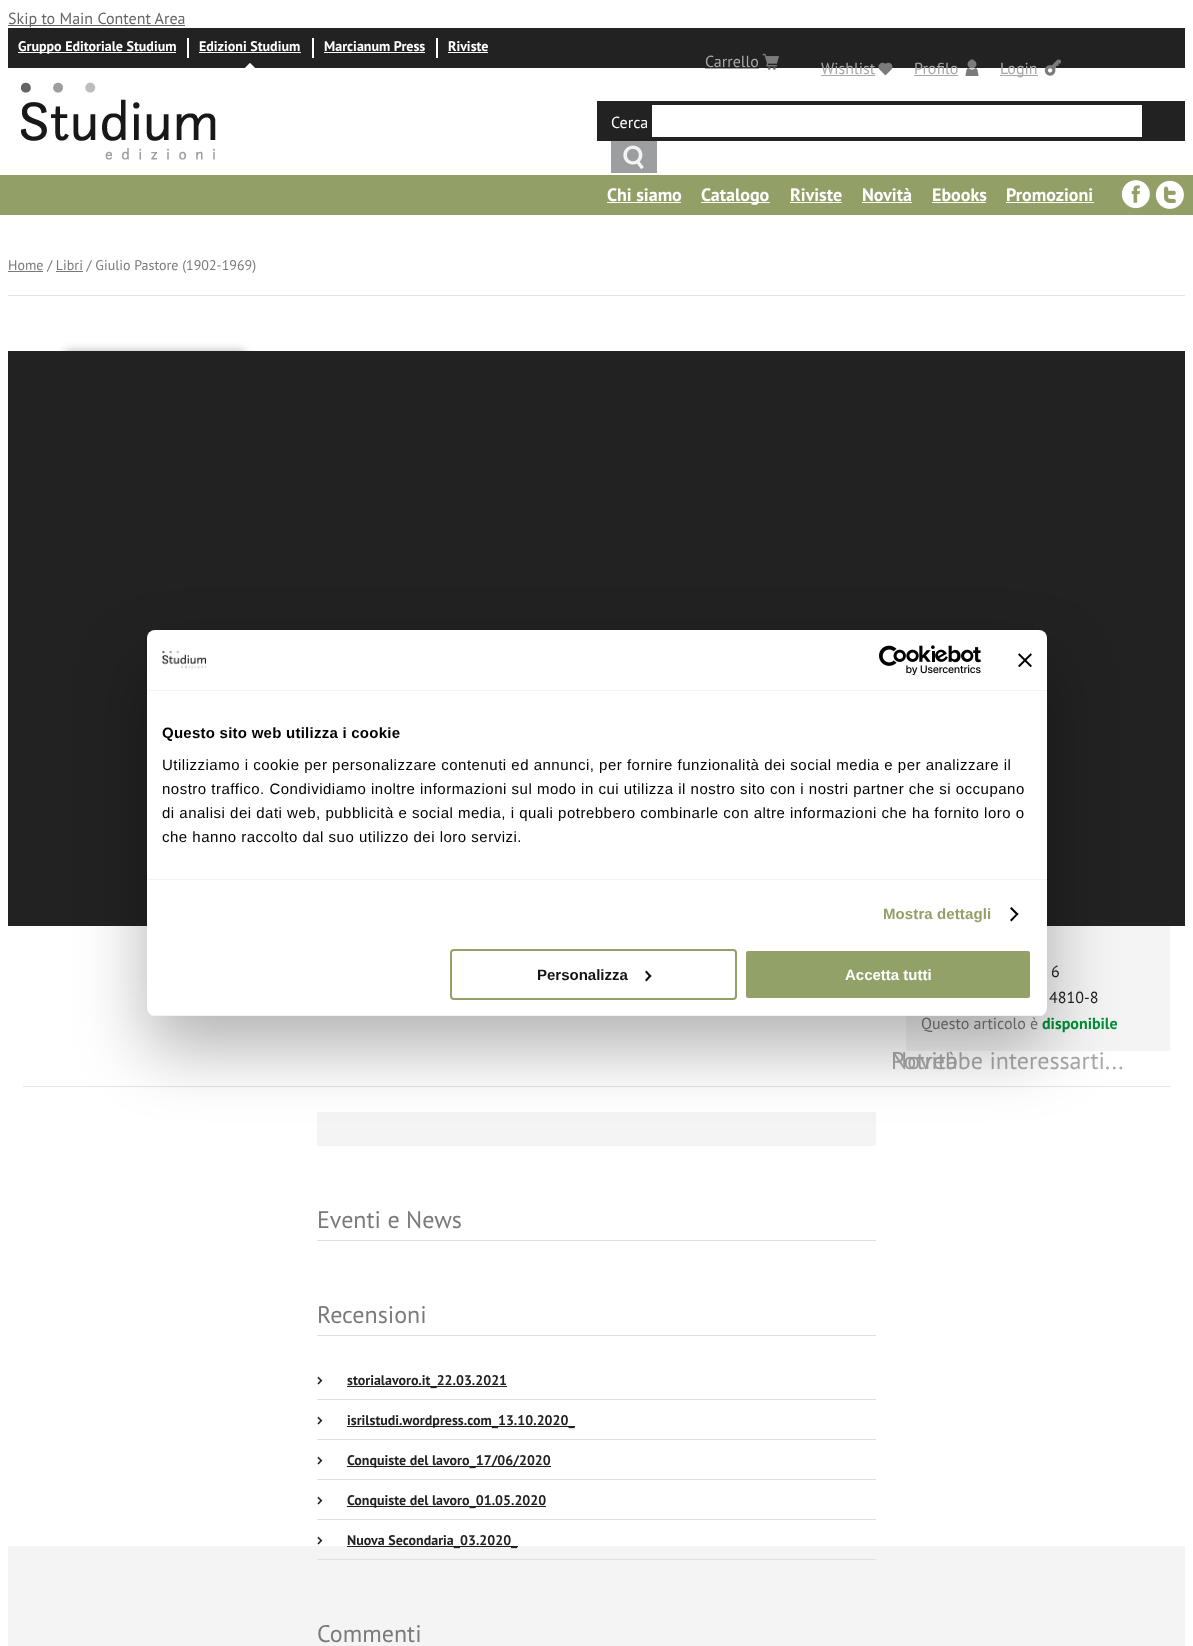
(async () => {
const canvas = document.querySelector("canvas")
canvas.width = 1193
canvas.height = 1646
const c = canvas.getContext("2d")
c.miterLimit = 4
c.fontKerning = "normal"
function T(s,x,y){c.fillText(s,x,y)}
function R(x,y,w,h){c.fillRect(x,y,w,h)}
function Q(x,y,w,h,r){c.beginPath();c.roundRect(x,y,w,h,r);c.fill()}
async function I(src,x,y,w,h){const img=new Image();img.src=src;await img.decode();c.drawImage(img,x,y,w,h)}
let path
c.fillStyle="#fff"
R(0,0,1193,1646)
c.fillStyle="#666"
R(8,25,177,1)
c.font="16px PT Sans"
T("Skip to Main Content Area",8,24)
c.fillStyle="#222"
R(8,28,1177,40)
c.fillStyle="#fff"
R(187,38,2,20)
R(18,52,158,1)
c.font="bold 14px PT Sans"
T("Gruppo Editoriale Studium",18,51)
R(312,38,2,20)
await I("1.png",245,63,10,5)
T("Edizioni Studium",199,51)
R(199,52,102,1)
R(436,38,2,20)
T("Marcianum Press",324,51)
R(324,52,101,1)
T("Riviste",448,51)
R(448,52,40,1)
c.font="16px PT Sans"
c.fillStyle="#a8a8a8"
T("Carrello",705,67)
R(705,68,54,1)
await I("2.png",762,53,17,17)
await I("3.png",878,62,15,14)
T("Wishlist",821,74)
R(821,75,54,1)
await I("4.png",965,59,14,17)
T("Profilo",914,74)
R(914,75,44,1)
await I("5.png",1044,59,17,17)
R(1000,75,38,1)
T("Login",1000,74)
await I("6.png",21,82,195,78)
c.fillStyle="#222"
R(597,101,588,40)
c.fillStyle="#fff"
T("Cerca",611,128)
R(652,105,490,32)
await I("7.png",611,141,46,32)
c.fillStyle="#92a068"
R(0,175,1193,40)
c.font="bold 18px PT Sans"
c.fillStyle="#fff"
T("Chi siamo",607,201)
R(607,202,74,1)
R(701,202,69,1)
T("Catalogo",701,201)
T("Riviste",790,201)
R(790,202,52,1)
T("Novità",862,201)
R(862,202,50,1)
T("Ebooks",932,201)
R(932,202,54,1)
T("Promozioni",1006,201)
R(1006,202,88,1)
await I("8.png",1121,180,29,29)
await I("9.png",1155,180,29,29)
c.fillStyle="#e4e4e4"
R(8,295,1177,1)
c.fillStyle="#7a7a7a"
R(8,271,35,1)
c.font="14px PT Sans"
T("Home / Libri / Giulio Pastore (1902-1969)",8,270)
R(56,271,27,1)
c.fillStyle="#0000004d"
c.filter="blur(5px)"
c.beginPath()
c.rect(65,351,180,264)
c.fill()
c.filter="none"
c.fillStyle="#f4f4f4"
R(906,926,264,125)
c.font="16px PT Sans"
c.fillStyle="#222"
T("6",1051,977)
T("4810-8",1049,1003)
c.fillStyle="#7a7a7a"
T("Questo articolo è",921,1029)
c.font="bold 16px PT Sans"
c.fillStyle="#009036"
T("disponibile",1042,1029)
c.fillStyle="#f4f4f4"
R(317,1112,559,34)
c.fillStyle="#e0e0e0"
R(317,1240,559,1)
c.font="24px PT Sans"
c.fillStyle="#7a7a7a"
T("Eventi e News",317,1228)
c.fillStyle="#e0e0e0"
R(317,1335,559,1)
c.fillStyle="#7a7a7a"
T("Recensioni",317,1323)
await I("10.png",317,1376,6,9)
c.fillStyle="#e0e0e0"
R(317,1399,559,1)
c.fillStyle="#222"
R(347,1386,160,1)
c.font="bold 14px PT Sans"
T("storialavoro.it_22.03.2021",347,1385)
await I("10.png",317,1416,6,9)
c.fillStyle="#e0e0e0"
R(317,1439,559,1)
c.fillStyle="#222"
R(347,1426,228,1)
T("isrilstudi.wordpress.com_13.10.2020_",347,1425)
await I("10.png",317,1456,6,9)
c.fillStyle="#e0e0e0"
R(317,1479,559,1)
c.fillStyle="#222"
R(347,1466,204,1)
T("Conquiste del lavoro_17/06/2020",347,1465)
await I("10.png",317,1496,6,9)
c.fillStyle="#e0e0e0"
R(317,1519,559,1)
c.fillStyle="#222"
R(347,1506,199,1)
T("Conquiste del lavoro_01.05.2020",347,1505)
await I("10.png",317,1536,6,9)
c.fillStyle="#f4f4f4"
R(8,1546,1177,100)
c.fillStyle="#e0e0e0"
R(317,1559,559,1)
c.fillStyle="#222"
R(347,1546,171,1)
T("Nuova Secondaria_03.2020_",347,1545)
c.font="24px PT Sans"
c.fillStyle="#7a7a7a"
T("Commenti",317,1642)
c.fillStyle="#a8a8a8"
T("Potrebbe interessarti...",891,1069)
T("Novità",891,1069)
c.fillStyle="#222"
R(8,351,1177,575)
c.fillStyle="#e4e4e4"
R(23,1086,1147,1)
c.fillStyle="#0000004d"
c.filter="blur(34px)"
c.beginPath()
c.roundRect(147,662,900,386,8)
c.fill()
c.filter="none"
c.fillStyle="#fff"
Q(147,630,900,386,8)
c.fillStyle="#f4f4f4"
R(147,690,900,1)
await I("11.png",162,650,44,19)
await I("12.png",879,645,102,30)
await I("13.png",1018,653,14,14)
R(147,879,900,1)
c.letterSpacing="0.25px"
c.font="bold 15px Liberation Sans"
c.fillStyle="#000"
T("Questo sito web utilizza i cookie",162,738)
c.letterSpacing="0.5px"
c.font="15px Liberation Sans"
T("Utilizziamo i cookie per personalizzare contenuti ed annunci, per fornire funzionalità dei social media e per analizzare il",162,770)
T("nostro traffico. Condividiamo inoltre informazioni sul modo in cui utilizza il nostro sito con i nostri partner che si occupano",162,794)
T("di analisi dei dati web, pubblicità e social media, i quali potrebbero combinarle con altre informazioni che ha fornito loro o",162,818)
T("che hanno raccolto dal suo utilizzo dei loro servizi.",162,842)
c.letterSpacing="0.1px"
c.font="bold 15px Liberation Sans"
c.fillStyle="#92a167"
T("Mostra dettagli",883,919)
c.fillStyle="#000"
path = new Path2D("M1011.5 907l7 7l-1.5 1.5l-7-7z")
c.fill(path)
path = new Path2D("M1017 913l1.5 1l-7 7.5l-1.5-1.5z")
c.fill(path)
c.save()
c.beginPath()
c.roundRect(147,630,900,386,8)
c.clip()
c.fillStyle="#f4f4f4"
R(147,1015,900,1)
c.restore()
c.beginPath()
c.roundRect(451,950,285,49,3)
c.strokeStyle="#92a167"
c.lineWidth=2
c.stroke()
c.letterSpacing="0px"
c.fillStyle="#141414"
T("Personalizza",537,980)
path = new Path2D("M646.5 970.5l5 5.5l-1.5 1.5l-5-5.5z")
c.fill(path)
path = new Path2D("M650 974.5l1.5 1.5l-5 5.5l-1.5-1.5z")
c.fill(path)
c.fillStyle="#92a167"
c.beginPath()
c.roundRect(745,950,286,49,3)
c.fill()
c.strokeStyle="#fff"
c.stroke()
c.fillStyle="#fff"
T("Accetta tutti",845,980)
})()
